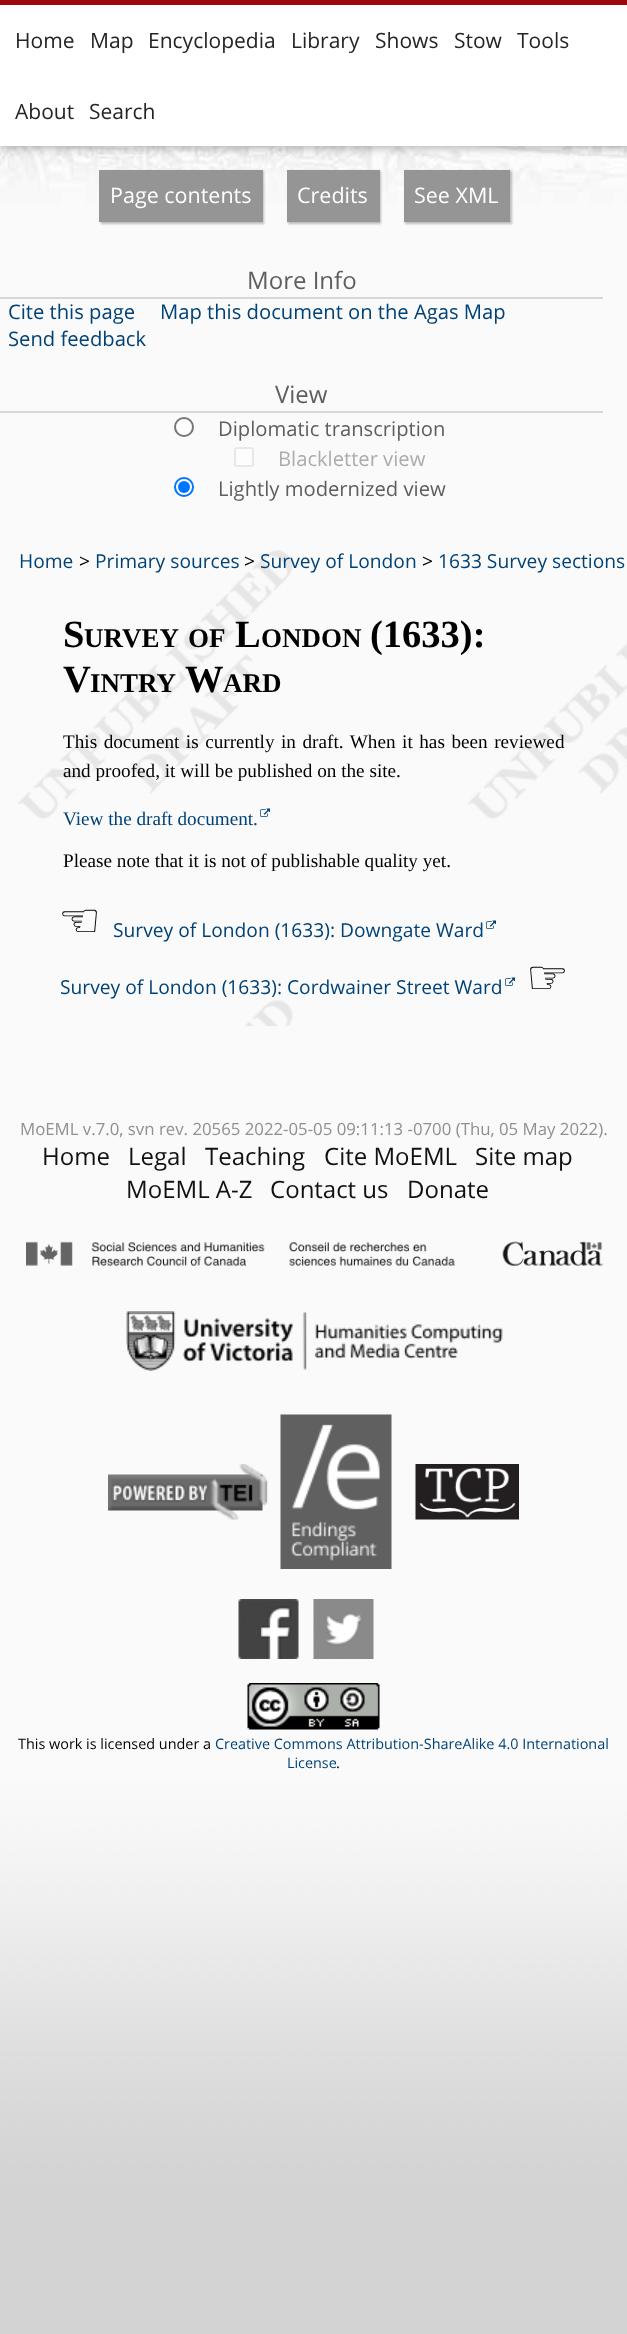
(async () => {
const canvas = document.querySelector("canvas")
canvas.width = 627
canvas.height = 2334
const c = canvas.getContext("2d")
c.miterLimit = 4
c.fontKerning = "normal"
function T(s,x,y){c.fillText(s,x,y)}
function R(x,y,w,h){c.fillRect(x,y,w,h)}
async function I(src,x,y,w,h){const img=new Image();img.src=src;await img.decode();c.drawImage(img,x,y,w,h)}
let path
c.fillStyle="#fafafa"
R(0,0,627,2334)
await I("1.png",0,146,627,2188)
c.fillStyle="#00000040"
c.filter="blur(4px)"
c.beginPath()
c.rect(2,3,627,146)
c.fill()
c.filter="none"
c.fillStyle="#fff"
R(0,5,627,141)
c.fillStyle="#9d0a0e"
R(0,0,627,5)
c.font="21px Open Sans"
c.fillStyle="#252525"
T("Home",15,48)
T("Map",90,48)
T("Encyclopedia",148,48)
T("Library",291,48)
T("Shows",375,48)
T("Stow",454,48)
T("Tools",517,48)
T("About",15,119)
T("Search",89,119)
c.fillStyle="#959595"
R(99,170,164,52)
c.save()
path = new Path2D("M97 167h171v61h-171zm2 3h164v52h-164z")
c.clip(path,"evenodd")
c.fillStyle="#00000040"
c.filter="blur(1px)"
c.beginPath()
c.rect(101,171,163,53)
c.fill()
c.filter="none"
c.restore()
c.font="21.5px Open Sans"
c.fillStyle="#fff"
T("Page contents",110,203)
c.fillStyle="#959595"
R(287,170,93,52)
c.save()
path = new Path2D("M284 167h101v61h-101zm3 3h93v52h-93z")
c.clip(path,"evenodd")
c.fillStyle="#00000040"
c.filter="blur(1px)"
c.beginPath()
c.rect(288,171,93,53)
c.fill()
c.filter="none"
c.restore()
c.fillStyle="#fff"
T("Credits",297,203)
c.fillStyle="#959595"
R(404,170,106,52)
c.save()
path = new Path2D("M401 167h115v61h-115zm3 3h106v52h-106z")
c.clip(path,"evenodd")
c.fillStyle="#00000040"
c.filter="blur(1px)"
c.beginPath()
c.rect(405,171,107,53)
c.fill()
c.filter="none"
c.restore()
c.fillStyle="#fff"
T("See XML",414,203)
c.font="24px Open Sans"
c.fillStyle="#5f5e5e"
T("More Info",247,289)
c.fillStyle="#d7d7d7"
R(0,297,603,2)
c.font="20.2px Open Sans"
c.fillStyle="#004276"
T("Cite this page",8,319)
T("Map this document on the Agas Map",160,319)
T("Send feedback",8,346)
c.font="24px Open Sans"
c.fillStyle="#5f5e5e"
T("View",275,403)
c.fillStyle="#d7d7d7"
R(0,411,603,2)
c.fillStyle="#fff"
c.beginPath()
c.arc(184,427,9,0,7)
c.fill()
c.strokeStyle="#767676"
c.lineWidth=2
c.stroke()
c.font="20.2px Open Sans"
c.fillStyle="#5f5e5e"
T("Diplomatic transcription",218,436)
c.fillStyle="#fdfdfd"
c.beginPath()
c.roundRect(235,448,18,18,2)
c.fill()
c.strokeStyle="#e8e8e8"
c.stroke()
c.fillStyle="#adacac"
T("Blackletter view",278,466)
c.fillStyle="#fff"
c.beginPath()
c.arc(184,487,9,0,7)
c.fill()
c.strokeStyle="#0075ff"
c.stroke()
c.fillStyle="#0075ff"
c.beginPath()
c.arc(184,487,6,0,7)
c.fill()
c.fillStyle="#5f5e5e"
T("Lightly modernized view",218,496)
await I("2.png",18,550,609,476)
c.font="19.2px Open Sans"
c.fillStyle="#004276"
T("Home",19,568)
c.fillStyle="#000"
T(">",79,568)
c.fillStyle="#004276"
T("Primary sources",95,568)
c.fillStyle="#000"
T(">",244,568)
c.fillStyle="#004276"
T("Survey of London",260,568)
c.fillStyle="#000"
T(">",422,568)
c.fillStyle="#004276"
T("1633 Survey sections",438,568)
c.font="bold 38.5px Liberation Serif"
c.fillStyle="#000"
T("S",63,647)
c.font="bold 27px Liberation Serif"
T("URVEY",84,647)
T("OF",188,647)
c.font="bold 38.5px Liberation Serif"
T("L",235,647)
c.font="bold 27px Liberation Serif"
T("ONDON",261,647)
c.font="bold 38.5px Liberation Serif"
T("(1633):",370,647)
T("V",63,692)
c.font="bold 27px Liberation Serif"
T("INTRY",90,692)
c.font="bold 38.5px Liberation Serif"
T("W",185,692)
c.font="bold 27px Liberation Serif"
T("ARD",223,692)
c.wordSpacing="1.75px"
c.font="19.2px Liberation Serif"
T("This document is currently in draft. When it has been reviewed",63,748)
c.wordSpacing="0px"
T("and proofed, it will be published on the site.",63,777)
c.fillStyle="#004276"
T("View the draft document.",63,825)
c.font="10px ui"
T("↗",260,817)
c.font="19.2px Liberation Serif"
c.fillStyle="#000"
T("Please note that it is not of publishable quality yet.",63,867)
c.font="48px DejaVu Sans"
T("☜",58,937)
c.font="19.2px Open Sans"
c.fillStyle="#004276"
T("Survey of London (1633): Downgate Ward",113,937)
c.font="10px ui"
T("↗",486,929)
c.font="19.2px Open Sans"
T("Survey of London (1633): Cordwainer Street Ward",60,994)
c.font="10px ui"
T("↗",505,986)
c.font="48px DejaVu Sans"
c.fillStyle="#000"
T("☞",526,994)
c.font="16.8px Open Sans"
c.fillStyle="#909090"
T("MoEML v.7.0, svn rev. 20565 2022-05-05 09:11:13 -0700 (Thu, 05 May 2022).",20,1135)
c.font="24px Open Sans"
c.fillStyle="#111"
T("Home",42,1165)
T("Legal",128,1165)
T("Teaching",205,1165)
T("Cite MoEML",324,1165)
T("Site map",475,1165)
T("MoEML A-Z",126,1198)
T("Contact us",270,1198)
T("Donate",407,1198)
await I("3.png",26,1241,577,25)
await I("4.png",126,1311,377,60)
await I("5.png",108,1464,160,56)
await I("6.png",280,1414,112,155)
await I("7.png",415,1464,104,56)
await I("8.png",238,1599,61,60)
await I("9.png",313,1599,61,60)
await I("10.png",247,1683,133,47)
c.font="14.4px Open Sans"
c.fillStyle="#000"
T("This work is licensed under a",18,1749)
c.fillStyle="#004276"
T("Creative Commons Attribution-ShareAlike 4.0 International",215,1749)
T("License",287,1768)
c.fillStyle="#000"
T(".",336,1768)
})()
